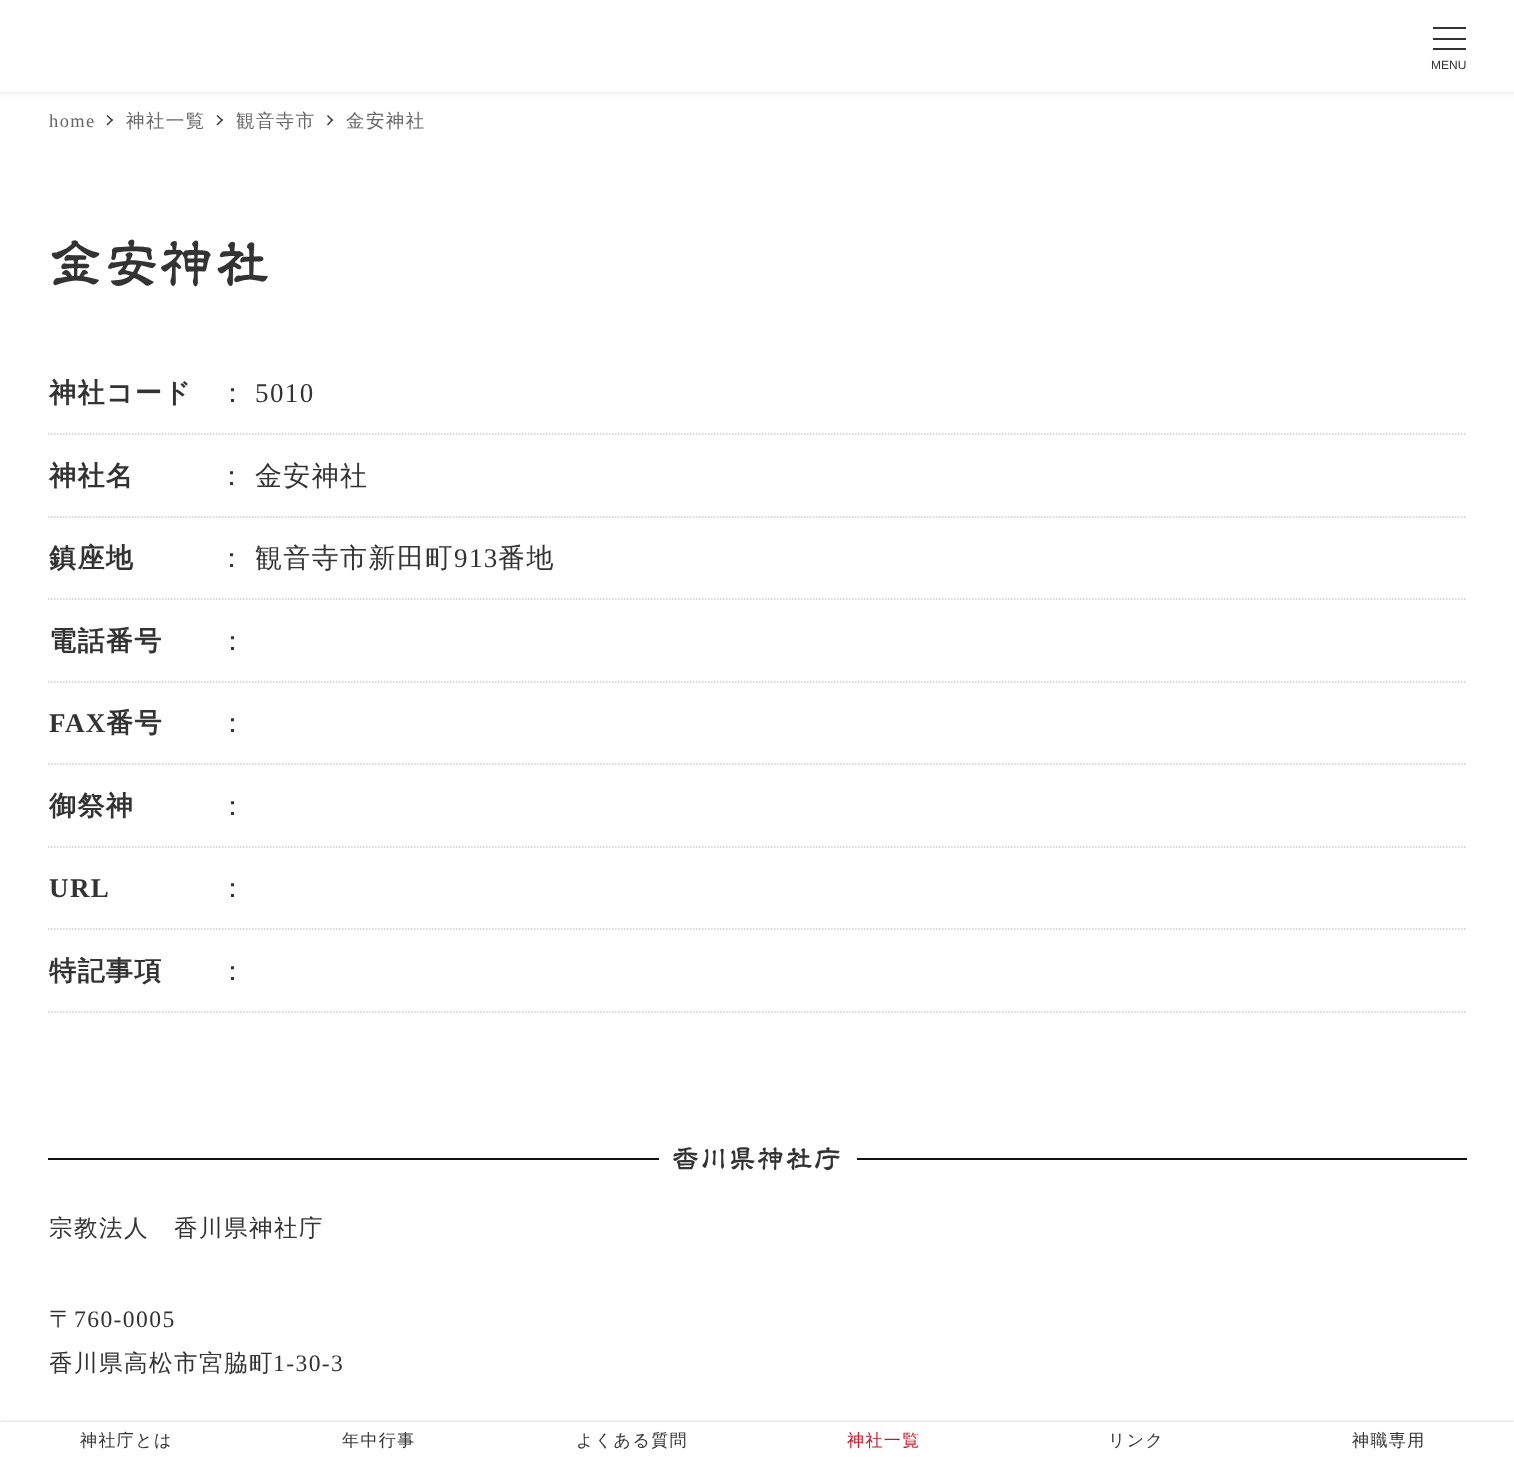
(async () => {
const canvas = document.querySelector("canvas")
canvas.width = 1514
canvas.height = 1459
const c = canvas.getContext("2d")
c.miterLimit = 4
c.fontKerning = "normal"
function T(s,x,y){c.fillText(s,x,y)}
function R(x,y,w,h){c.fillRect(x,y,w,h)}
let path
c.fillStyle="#fff"
R(0,0,1514,1459)
c.fillStyle="#0000000d"
c.filter="blur(1.5px)"
c.beginPath()
c.rect(-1,0,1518,95)
c.fill()
c.filter="none"
c.fillStyle="#fff"
R(0,0,1514,92)
c.fillStyle="#333"
R(1433,27,33,2)
R(1433,38,33,2)
R(1433,48,33,2)
c.font="12px Liberation Sans"
T("MENU",1431,69)
c.letterSpacing="1.4px"
c.font="18.5px Liberation Serif"
c.fillStyle="#666"
T("home",49,127)
c.fillStyle="#333"
path = new Path2D("M107.5 115l5.5 5l-1 1l-5.5-5z")
c.fill(path)
path = new Path2D("M112 119l1 1l-5.5 5.5l-1-1z")
c.fill(path)
c.font="500 18.5px WenQuanYi Zen Hei"
c.fillStyle="#666"
T("神社一覧",126,127)
c.fillStyle="#333"
path = new Path2D("M217.5 115l5.5 5l-1 1l-5.5-5z")
c.fill(path)
path = new Path2D("M222 119l1 1l-5.5 5.5l-1-1z")
c.fill(path)
c.fillStyle="#666"
T("観音寺市",236,127)
c.fillStyle="#333"
path = new Path2D("M328 115l5 5l-1 1l-5-5z")
c.fill(path)
path = new Path2D("M332 119l1 1l-5 5.5l-1-1z")
c.fill(path)
c.fillStyle="#666"
T("金安神社",346,127)
c.font="54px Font"
c.fillStyle="#333"
T("金安神社",49,284)
path = new Path2D("M48 434h1419")
c.strokeStyle="#ccc"
c.lineWidth=1.5
c.setLineDash([1.5,1.5])
c.stroke(path)
c.font="bold 27px WenQuanYi Zen Hei"
T("神社コード",49,402)
c.font="500 27px WenQuanYi Zen Hei"
T("：",219,402)
c.font="27px Liberation Serif"
T("5010",255,402)
path = new Path2D("M48 517h1419")
c.stroke(path)
c.font="bold 27px WenQuanYi Zen Hei"
T("神社名",49,485)
c.wordSpacing="-1px"
c.font="500 27px WenQuanYi Zen Hei"
T("： 金安神社",218,485)
path = new Path2D("M48 599h1419")
c.stroke(path)
c.wordSpacing="0px"
c.font="bold 27px WenQuanYi Zen Hei"
T("鎮座地",49,567)
c.wordSpacing="-1px"
c.font="500 27px WenQuanYi Zen Hei"
T("： 観音寺市新田町",218,567)
c.wordSpacing="0px"
c.font="27px Liberation Serif"
T("913",454,567)
c.font="500 27px WenQuanYi Zen Hei"
T("番地",498,567)
path = new Path2D("M48 682h1419")
c.stroke(path)
c.font="bold 27px WenQuanYi Zen Hei"
T("電話番号",49,650)
c.font="500 27px WenQuanYi Zen Hei"
T("：",219,650)
path = new Path2D("M48 764h1419")
c.stroke(path)
c.font="bold 27px Liberation Serif"
T("FAX",49,732)
c.font="bold 27px WenQuanYi Zen Hei"
T("番号",106,732)
c.font="500 27px WenQuanYi Zen Hei"
T("：",219,732)
path = new Path2D("M48 847h1419")
c.stroke(path)
c.font="bold 27px WenQuanYi Zen Hei"
T("御祭神",49,815)
c.font="500 27px WenQuanYi Zen Hei"
T("：",219,815)
path = new Path2D("M48 929h1419")
c.stroke(path)
c.font="bold 27px Liberation Serif"
T("URL",49,897)
c.font="500 27px WenQuanYi Zen Hei"
T("：",219,897)
path = new Path2D("M48 1012h1419")
c.stroke(path)
c.font="bold 27px WenQuanYi Zen Hei"
T("特記事項",49,980)
c.font="500 27px WenQuanYi Zen Hei"
T("：",219,980)
c.fillStyle="#111"
R(48,1158,611,2)
c.font="27px Font"
c.fillStyle="#333"
T("香川県神社庁",672,1169)
c.fillStyle="#111"
R(857,1158,610,2)
c.font="500 23.6px WenQuanYi Zen Hei"
c.fillStyle="#333"
T("宗教法人　香川県神社庁",49,1236)
T("〒",49,1327)
c.font="23.6px Liberation Serif"
T("760-0005",74,1327)
c.font="500 23.6px WenQuanYi Zen Hei"
T("香川県高松市宮脇町",49,1371)
c.font="23.6px Liberation Serif"
T("1-30-3",273,1371)
c.fillStyle="#00000040"
c.filter="blur(1.5px)"
c.beginPath()
c.rect(0,1422,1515,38)
c.fill()
c.filter="none"
c.fillStyle="#fff"
R(0,1422,1514,37)
c.font="500 17px WenQuanYi Zen Hei"
c.fillStyle="#333"
T("神社庁とは",80,1446)
T("年中行事",342,1446)
T("よくある質問",576,1446)
c.fillStyle="#cd162c"
T("神社一覧",847,1446)
c.fillStyle="#333"
T("リンク",1108,1446)
T("神職専用",1352,1446)
})()
